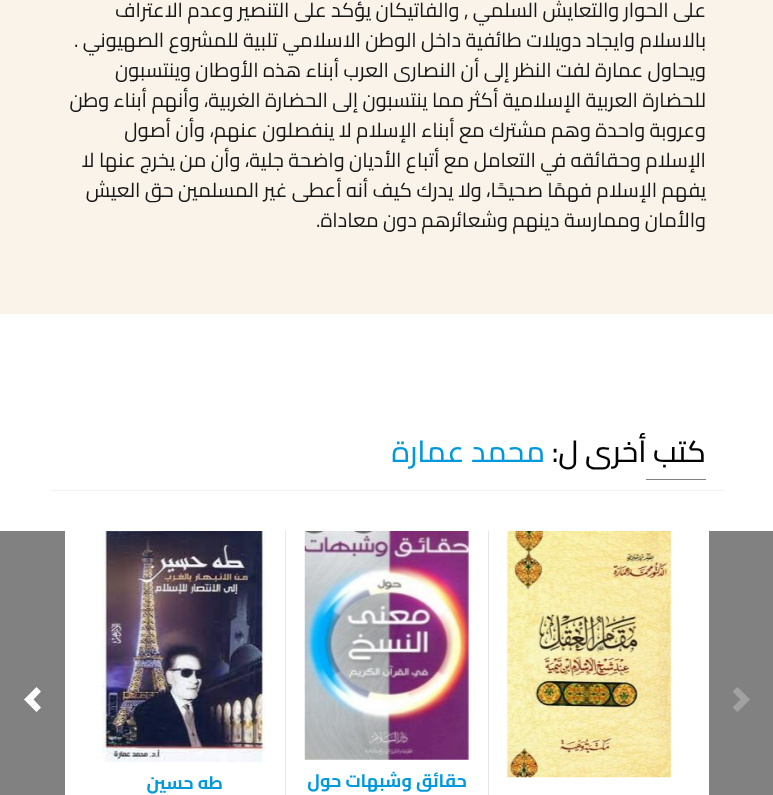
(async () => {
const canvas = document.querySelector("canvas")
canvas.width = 773
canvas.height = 795
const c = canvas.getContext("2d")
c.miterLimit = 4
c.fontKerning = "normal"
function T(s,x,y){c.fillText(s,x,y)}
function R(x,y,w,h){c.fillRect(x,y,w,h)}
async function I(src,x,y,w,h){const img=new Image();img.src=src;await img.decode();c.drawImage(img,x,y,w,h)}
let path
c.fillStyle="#fff"
R(0,0,773,795)
c.fillStyle="#f9f3e9"
R(0,0,773,314)
c.direction="rtl"
c.font="20px Cairo"
c.fillStyle="#171717"
T("على الحوار والتعايش السلمي , والفاتيكان يؤكد على التنصير وعدم الاعتراف",706,17)
T("بالاسلام وايجاد دويلات طائفية داخل الوطن الاسلامي تلبية للمشروع الصهيوني .",706,47)
T("ويحاول عمارة لفت النظر إلى أن النصارى العرب أبناء هذه الأوطان وينتسبون",706,77)
T("للحضارة العربية الإسلامية أكثر مما ينتسبون إلى الحضارة الغربية، وأنهم أبناء وطن",706,107)
T("وعروبة واحدة وهم مشترك مع أبناء الإسلام لا ينفصلون عنهم، وأن أصول",706,137)
T("الإسلام وحقائقه في التعامل مع أتباع الأديان واضحة جلية، وأن من يخرج عنها لا",706,167)
T("يفهم الإسلام فهمًا صحيحًا، ولا يدرك كيف أنه أعطى غير المسلمين حق العيش",706,197)
T("والأمان وممارسة دينهم وشعائرهم دون معاداة.",706,227)
c.fillStyle="#f3f3f3"
R(50,490,675,1)
c.font="500 30px Cairo"
c.fillStyle="#020202"
T("كتب أخرى ل:",706,462)
c.fillStyle="#0099de"
T("محمد عمارة",545,462)
c.fillStyle="#818181"
R(646,479,60,1)
R(709,531,64,264)
c.fillStyle="#a1a1a1"
path = new Path2D("M737.5 687l-5 4.5l8 8l-8 8l5 4.5l12.5-12.5z")
c.fill(path)
c.fillStyle="#e6e6e6"
R(488,531,1,264)
await I("1.png",506,531,166,247)
R(285,531,1,264)
await I("2.png",304,531,165,229)
c.font="bold 18px Cairo"
c.fillStyle="#0099de"
T("حقائق وشبهات حول",467,787)
await I("3.png",102,531,164,232)
T("طه حسين",223,789)
c.fillStyle="#818181"
R(0,531,65,264)
c.fillStyle="#fff"
path = new Path2D("M36.5 687l-12.5 12.5l12.5 12.5l4.5-4.5l-7.5-8l7.5-8z")
c.fill(path)
})()
